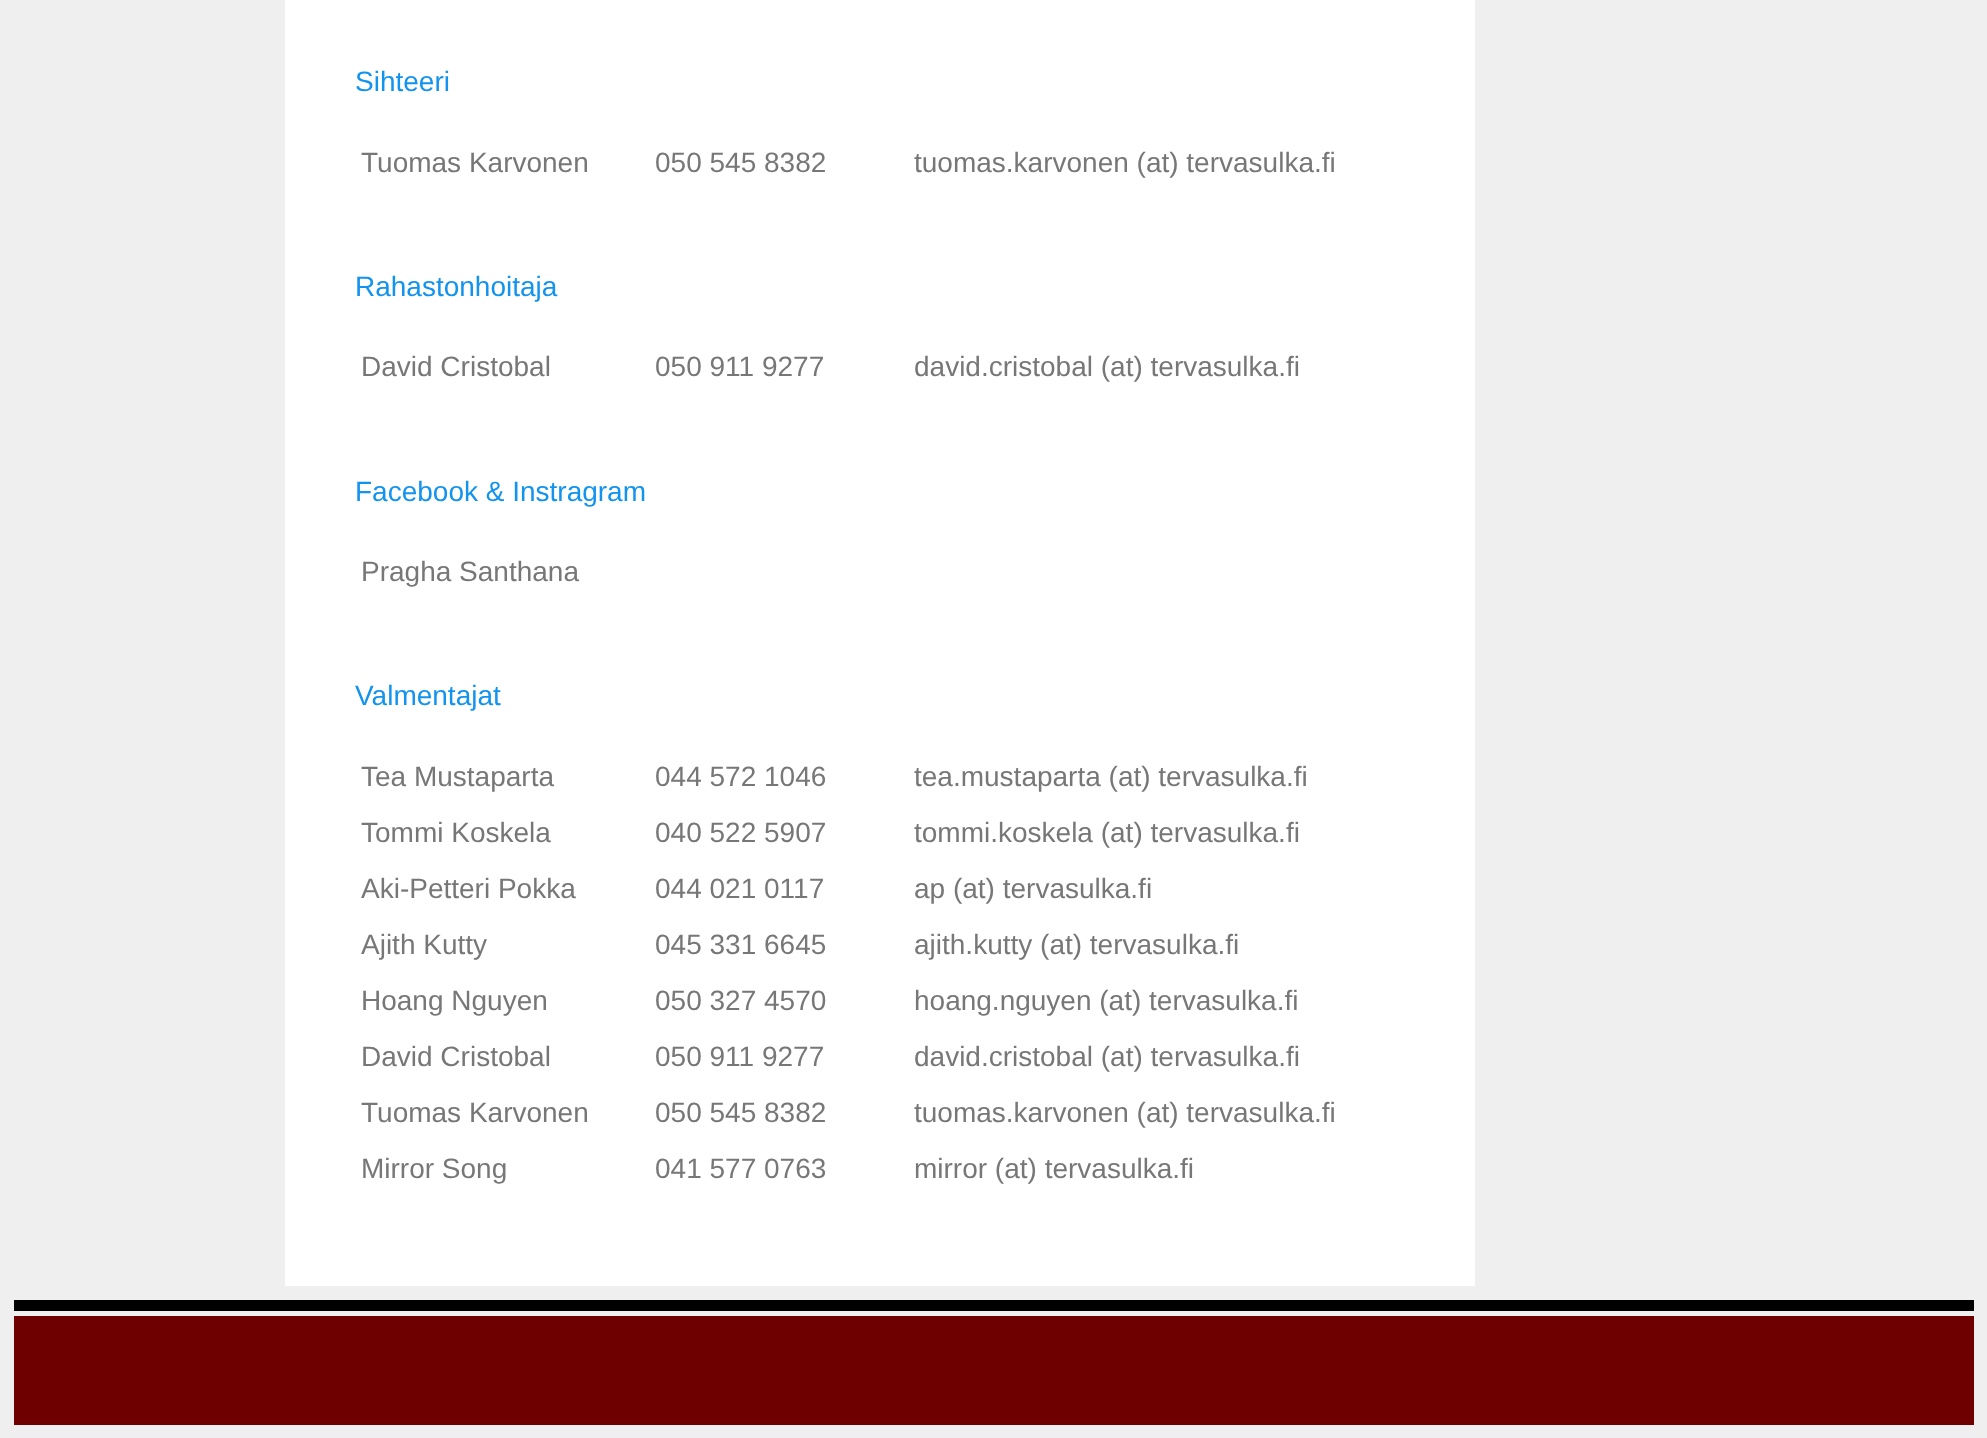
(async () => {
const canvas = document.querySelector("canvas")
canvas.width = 1987
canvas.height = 1438
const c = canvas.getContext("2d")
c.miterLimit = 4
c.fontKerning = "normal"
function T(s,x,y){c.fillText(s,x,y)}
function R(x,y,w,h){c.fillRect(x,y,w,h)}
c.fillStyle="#f0efef"
R(0,0,1987,1438)
c.fillStyle="#fff"
R(285,0,1190,1286)
c.font="28px Liberation Sans"
c.fillStyle="#1293ee"
T("Sihteeri",355,91)
c.fillStyle="#777"
T("Tuomas Karvonen",361,172)
T("050 545 8382",655,172)
T("tuomas.karvonen (at) tervasulka.fi",914,172)
c.fillStyle="#1293ee"
T("Rahastonhoitaja",355,296)
c.fillStyle="#777"
T("David Cristobal",361,376)
T("050 911 9277",655,376)
T("david.cristobal (at) tervasulka.fi",914,376)
c.fillStyle="#1293ee"
T("Facebook & Instragram",355,501)
c.fillStyle="#777"
T("Pragha Santhana",361,581)
c.fillStyle="#1293ee"
T("Valmentajat",355,705)
c.fillStyle="#777"
T("Tea Mustaparta",361,786)
T("044 572 1046",655,786)
T("tea.mustaparta (at) tervasulka.fi",914,786)
T("Tommi Koskela",361,842)
T("040 522 5907",655,842)
T("tommi.koskela (at) tervasulka.fi",914,842)
T("Aki-Petteri Pokka",361,898)
T("044 021 0117",655,898)
T("ap (at) tervasulka.fi",914,898)
T("Ajith Kutty",361,954)
T("045 331 6645",655,954)
T("ajith.kutty (at) tervasulka.fi",914,954)
T("Hoang Nguyen",361,1010)
T("050 327 4570",655,1010)
T("hoang.nguyen (at) tervasulka.fi",914,1010)
T("David Cristobal",361,1066)
T("050 911 9277",655,1066)
T("david.cristobal (at) tervasulka.fi",914,1066)
T("Tuomas Karvonen",361,1122)
T("050 545 8382",655,1122)
T("tuomas.karvonen (at) tervasulka.fi",914,1122)
T("Mirror Song",361,1178)
T("041 577 0763",655,1178)
T("mirror (at) tervasulka.fi",914,1178)
c.fillStyle="#000"
R(14,1300,1960,11)
c.fillStyle="#6e0000"
R(14,1316,1960,109)
})()
